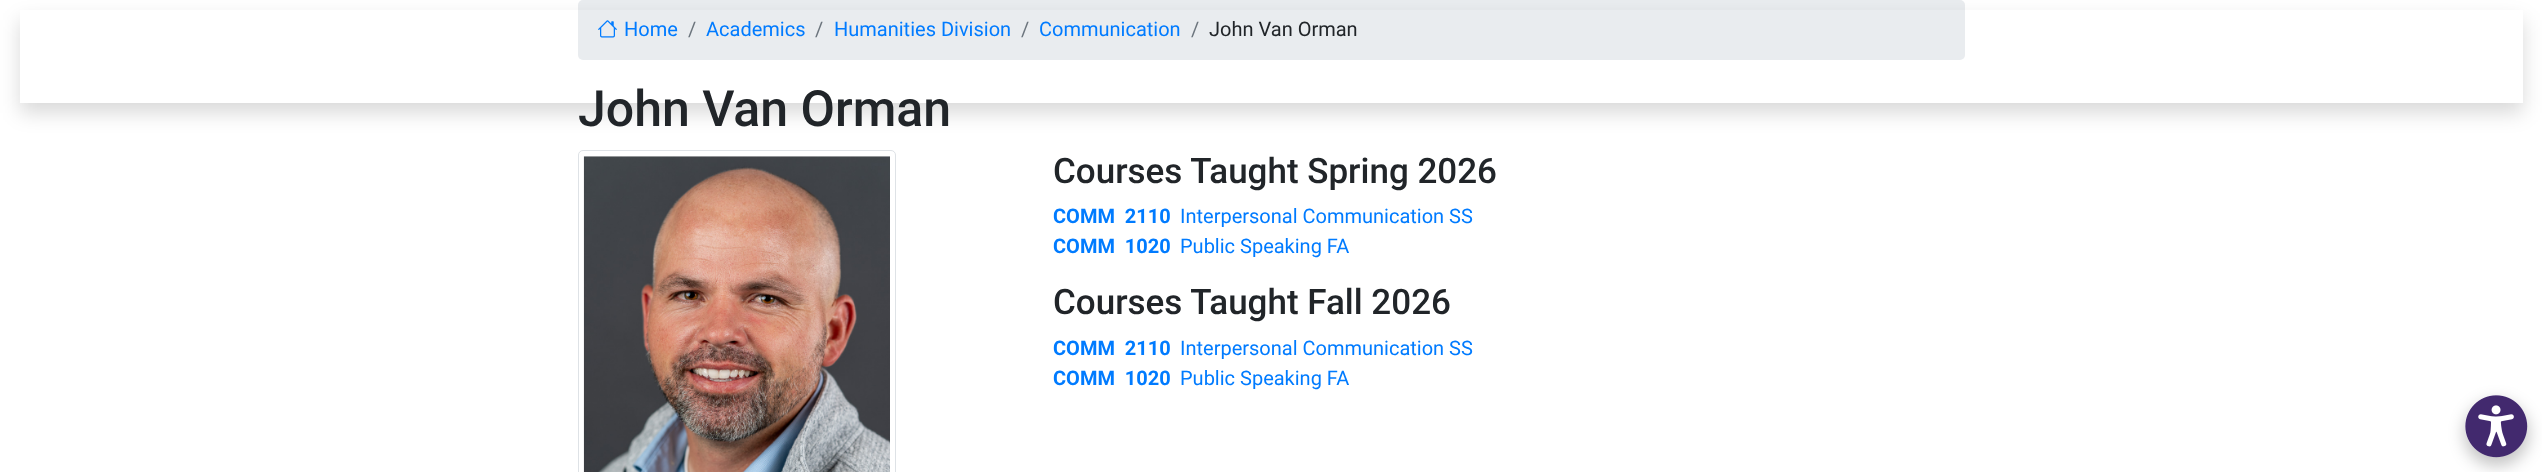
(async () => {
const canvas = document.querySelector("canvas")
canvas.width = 2542
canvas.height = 472
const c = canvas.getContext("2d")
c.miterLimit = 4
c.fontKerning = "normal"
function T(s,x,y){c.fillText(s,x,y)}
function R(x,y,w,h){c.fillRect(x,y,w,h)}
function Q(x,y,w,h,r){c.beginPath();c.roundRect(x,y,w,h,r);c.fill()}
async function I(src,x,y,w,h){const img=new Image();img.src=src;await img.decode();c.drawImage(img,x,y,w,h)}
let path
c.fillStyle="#fff"
R(0,0,2542,472)
c.fillStyle="#e9ecef"
Q(578,0,1387,60,5)
await I("1.png",598,20,19,18)
c.save()
path = new Path2D("M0 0h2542v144h-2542zm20 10h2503v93h-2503z")
c.clip(path,"evenodd")
c.fillStyle="#00000026"
c.filter="blur(10px)"
c.beginPath()
c.rect(20,20,2503,93)
c.fill()
c.filter="none"
c.restore()
c.font="20px Roboto"
c.fillStyle="#007bff"
T("Home",624,36)
c.fillStyle="#6c757d"
T("/",688,36)
c.fillStyle="#007bff"
T("Academics",706,36)
c.fillStyle="#6c757d"
T("/",815,36)
c.fillStyle="#007bff"
T("Humanities Division",834,36)
c.fillStyle="#6c757d"
T("/",1021,36)
c.fillStyle="#007bff"
T("Communication",1039,36)
c.fillStyle="#6c757d"
T("/",1191,36)
c.fillStyle="#212529"
T("John Van Orman",1209,36)
c.font="500 50px Roboto"
T("John Van Orman",578,126)
c.beginPath()
c.roundRect(578.5,150.5,317,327,4.5)
c.strokeStyle="#dee2e6"
c.stroke()
await I("2.png",583,156,307,316)
c.font="500 35px Roboto"
T("Courses Taught Spring 2026",1053,183)
c.font="bold 20px Roboto"
c.fillStyle="#007bff"
T("COMM  2110",1053,223)
c.font="20px Roboto"
T("Interpersonal Communication SS",1180,223)
c.font="bold 20px Roboto"
T("COMM  1020",1053,253)
c.font="20px Roboto"
T("Public Speaking FA",1180,253)
c.font="500 35px Roboto"
c.fillStyle="#212529"
T("Courses Taught Fall 2026",1053,314)
c.font="bold 20px Roboto"
c.fillStyle="#007bff"
T("COMM  2110",1053,355)
c.font="20px Roboto"
T("Interpersonal Communication SS",1180,355)
c.font="bold 20px Roboto"
T("COMM  1020",1053,385)
c.font="20px Roboto"
T("Public Speaking FA",1180,385)
c.fillStyle="#0000003b"
c.filter="blur(8px)"
c.beginPath()
c.roundRect(2464,401,65,65,32.5)
c.fill()
c.filter="none"
await I("3.png",2465,395,63,63)
})()
